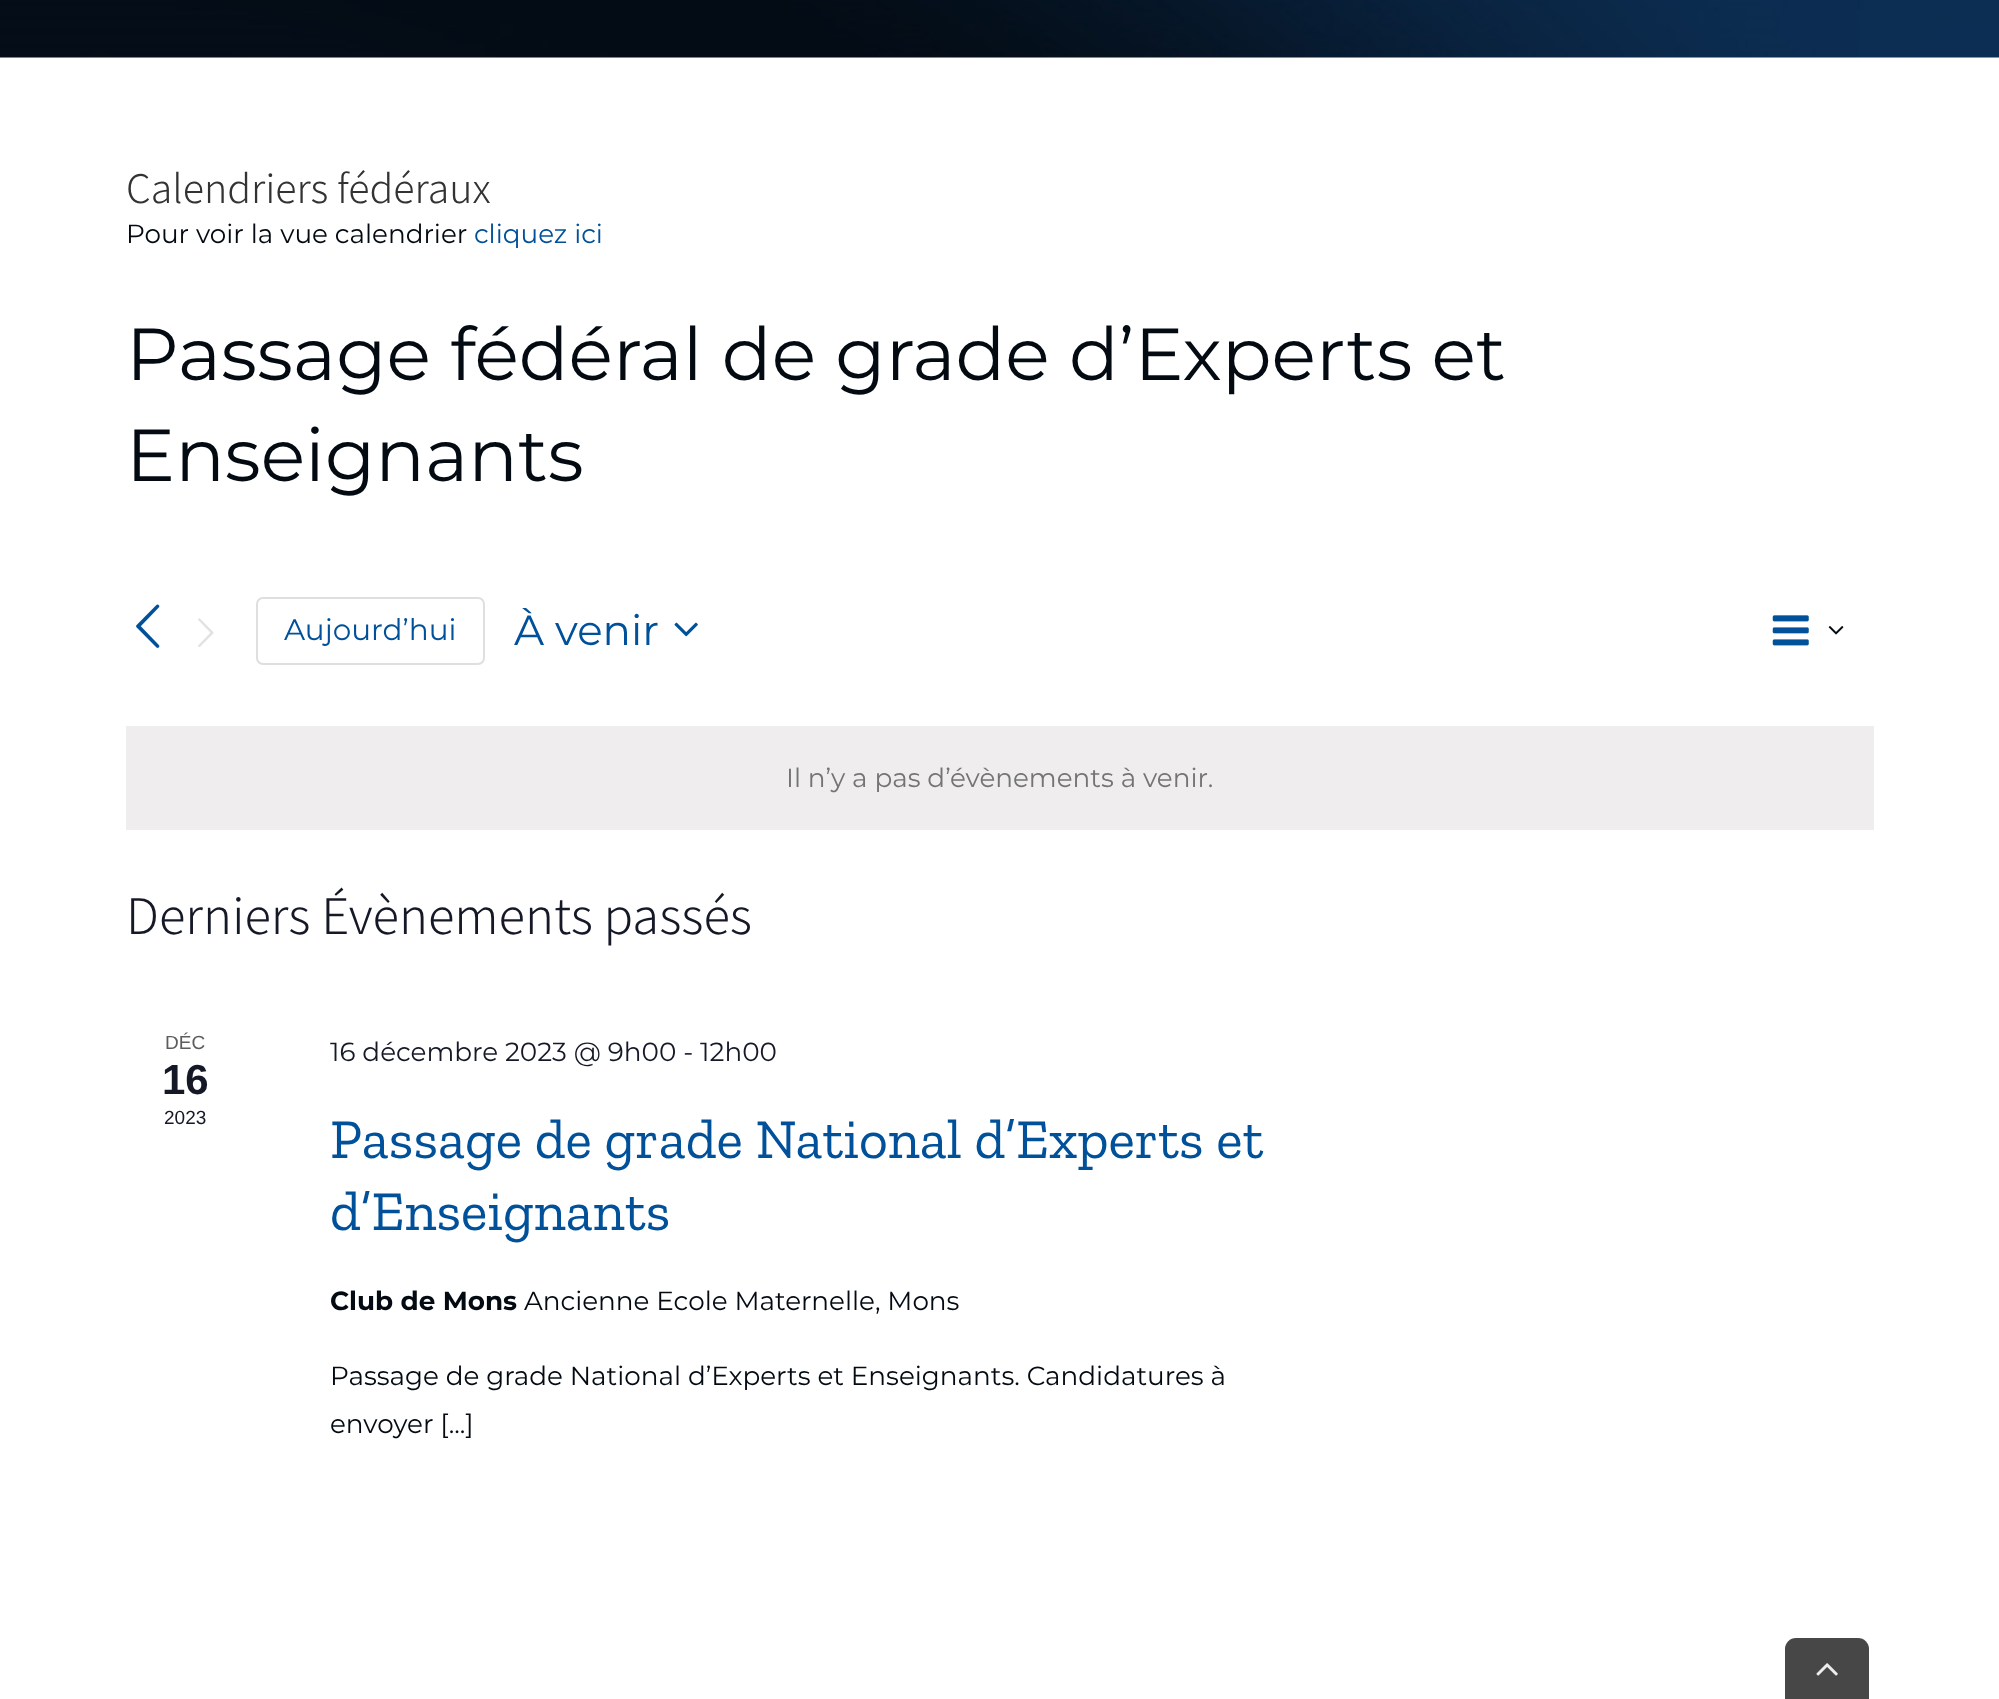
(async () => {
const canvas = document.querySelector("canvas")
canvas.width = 1999
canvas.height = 1699
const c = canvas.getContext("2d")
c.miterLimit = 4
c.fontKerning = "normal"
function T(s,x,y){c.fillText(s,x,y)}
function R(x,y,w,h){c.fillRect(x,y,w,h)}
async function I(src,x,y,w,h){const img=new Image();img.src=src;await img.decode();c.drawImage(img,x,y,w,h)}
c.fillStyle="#fff"
R(0,0,1999,1699)
await I("1.png",0,0,1999,58)
c.font="300 39.4px Noto Sans JP"
c.fillStyle="#333"
T("Calendriers fédéraux",126,203)
c.font="26.25px Montserrat"
c.fillStyle="#030a12"
T("Pour voir la vue calendrier",126,243)
c.fillStyle="#00519a"
T("cliquez ici",474,243)
c.font="73.5px Montserrat"
c.fillStyle="#030a12"
T("Passage fédéral de grade d’Experts et",126,380)
T("Enseignants",126,481)
await I("2.png",136,604,24,44)
await I("3.png",198,618,16,29)
c.beginPath()
c.roundRect(257,598,227,66,6)
c.strokeStyle="#e0dede"
c.lineWidth=2
c.stroke()
c.font="29.5px Montserrat"
c.fillStyle="#00519a"
T("Aujourd’hui",284,640)
c.font="42px Montserrat"
T("À venir",514,645)
await I("4.png",674,622,24,15)
await I("5.png",1772,615,37,31)
await I("6.png",1828,626,16,9)
c.fillStyle="#efeded"
R(126,726,1748,104)
c.font="26.25px Montserrat"
c.fillStyle="#747474"
T("Il n’y a pas d’évènements à venir.",786,787)
c.font="300 49px Noto Sans JP"
c.fillStyle="#141827"
T("Derniers Évènements passés",126,934)
c.font="19px Liberation Sans"
c.fillStyle="#5d5d5d"
T("DÉC",165,1049)
c.font="bold 42px Liberation Sans"
c.fillStyle="#141827"
T("16",162,1094)
c.font="19px Liberation Sans"
T("2023",164,1124)
c.font="26.25px Montserrat"
T("16 décembre 2023 @ 9h00 - 12h00",330,1061)
c.font="56px Zilla Slab"
c.fillStyle="#00519a"
T("Passage de grade National d’Experts et",330,1158)
T("d’Enseignants",330,1230)
c.font="bold 26.25px Montserrat"
c.fillStyle="#030a12"
T("Club de Mons",330,1310)
c.font="26.25px Montserrat"
T("Ancienne Ecole Maternelle, Mons",524,1310)
T("Passage de grade National d’Experts et Enseignants. Candidatures à",330,1385)
T("envoyer [...]",330,1433)
c.fillStyle="#474747"
c.beginPath()
c.roundRect(1785,1638,84,61,[11,11,0,0])
c.fill()
await I("7.png",1816,1663,22,13)
})()
